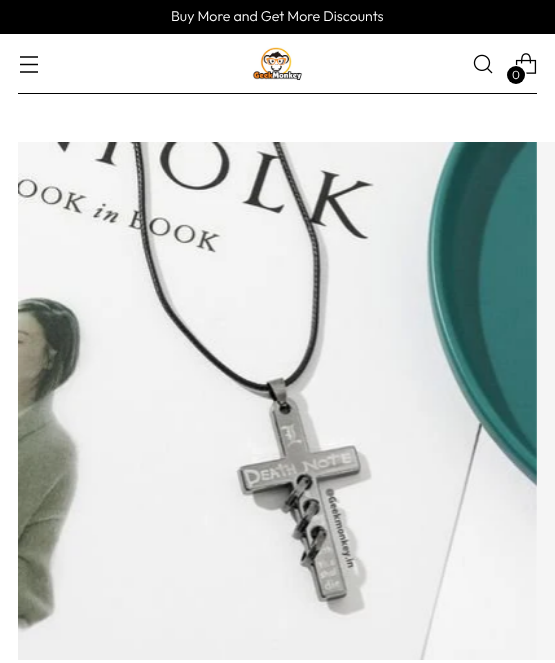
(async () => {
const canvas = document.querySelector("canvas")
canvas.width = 555
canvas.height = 663
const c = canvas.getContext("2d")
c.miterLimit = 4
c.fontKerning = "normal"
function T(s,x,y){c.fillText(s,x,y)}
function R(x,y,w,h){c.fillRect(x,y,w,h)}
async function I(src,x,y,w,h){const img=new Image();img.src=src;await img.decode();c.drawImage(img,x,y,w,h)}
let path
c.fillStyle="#fff"
R(0,0,555,663)
c.fillStyle="#000"
R(0,0,555,34)
c.font="300 14.2px Outfit"
c.fillStyle="#fff"
T("Buy More and Get More Discounts",171,21)
c.fillStyle="#000"
R(18,93,519,1)
path = new Path2D("M20 64.5h18m-18-7.5h18m-18 15h18")
c.strokeStyle="#000"
c.lineWidth=1.3
c.stroke(path)
await I("1.png",252,47,51,34)
await I("2.png",473,54,20,20)
await I("3.png",515,53,22,21)
c.beginPath()
c.arc(516.5,75.5,9.5,0,7)
c.strokeStyle="#fff"
c.lineWidth=2
c.stroke()
c.beginPath()
c.arc(516,75,9,0,7)
c.fill()
c.font="300 12px Outfit"
c.fillStyle="#fff"
T("0",512,79)
await I("4.png",18,142,519,518)
c.fillStyle="#f5f5f5"
R(537,142,18,518)
})()
